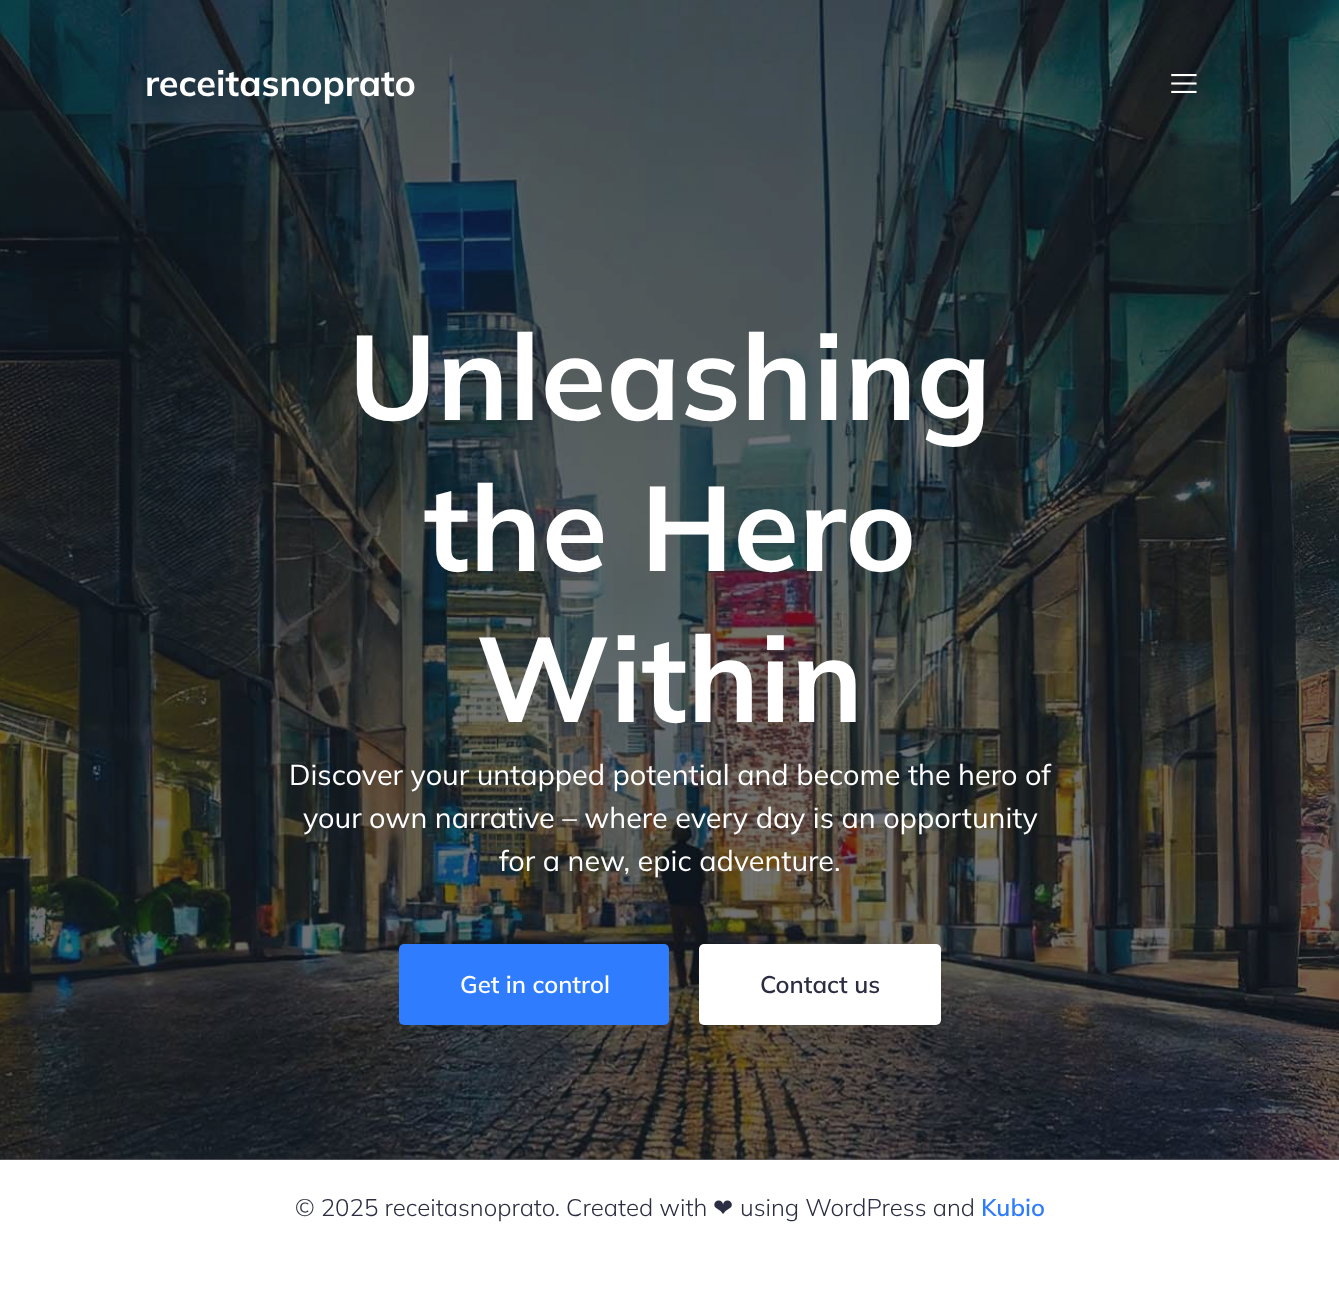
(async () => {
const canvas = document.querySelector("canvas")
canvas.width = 1339
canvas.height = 1316
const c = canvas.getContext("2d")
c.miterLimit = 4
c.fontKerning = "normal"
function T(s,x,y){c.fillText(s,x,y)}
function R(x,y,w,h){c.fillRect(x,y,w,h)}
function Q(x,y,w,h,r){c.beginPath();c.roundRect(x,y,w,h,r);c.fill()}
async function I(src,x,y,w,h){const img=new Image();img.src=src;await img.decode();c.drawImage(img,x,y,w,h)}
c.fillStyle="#fff"
R(0,0,1339,1316)
c.fillStyle="#707176"
R(0,1159,1339,1)
await I("2.png",0,0,1339,1160)
c.font="bold 36px Mulish"
c.fillStyle="#fff"
T("receitasnoprato",145,96)
await I("1.png",1171,74,26,19)
c.font="bold 120px Mulish"
T("Unleashing",348,420)
T("the Hero",424,571)
T("Within",476,722)
c.font="28.8px Mulish"
T("Discover your untapped potential and become the hero of",289,785)
T("your own narrative – where every day is an opportunity",303,828)
T("for a new, epic adventure.",499,871)
c.fillStyle="#2f7cff"
Q(399,944,270,81,5)
c.font="600 24px Mulish"
c.fillStyle="#fff"
T("Get in control",460,993)
Q(699,944,242,81,5)
c.fillStyle="#2b2d42"
T("Contact us",760,993)
c.font="300 24px Mulish"
T("© 2025 receitasnoprato. Created with",295,1216)
c.font="24px DejaVu Sans"
T("❤",713,1216)
c.font="300 24px Mulish"
T("using WordPress and",740,1216)
c.font="600 24px Mulish"
c.fillStyle="#2f7cff"
T("Kubio",981,1216)
})()
